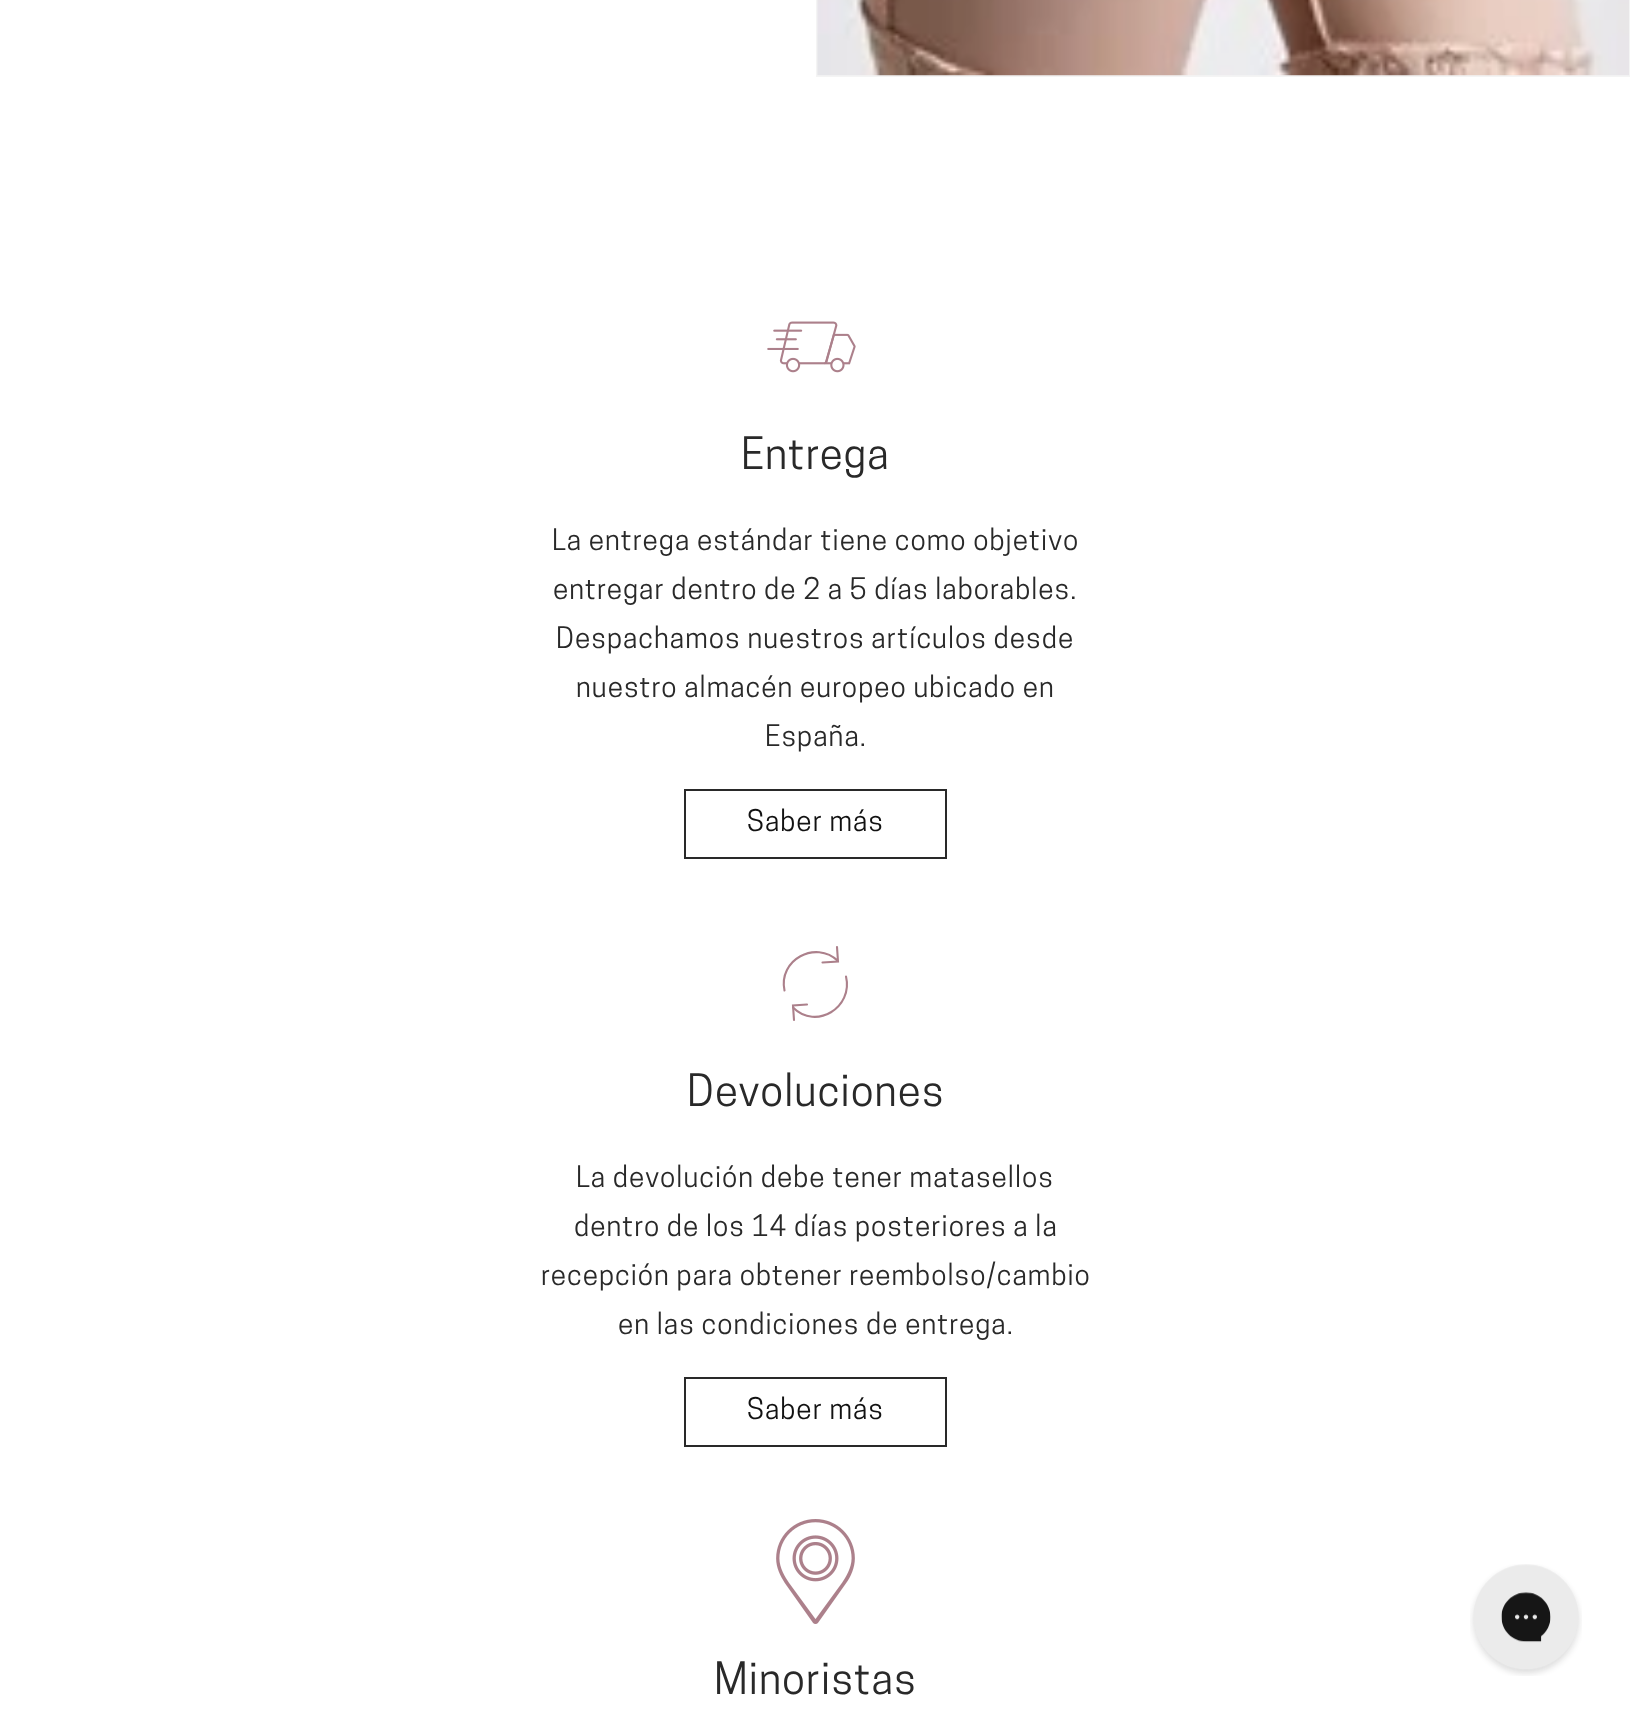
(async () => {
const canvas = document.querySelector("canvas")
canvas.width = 1630
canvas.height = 1716
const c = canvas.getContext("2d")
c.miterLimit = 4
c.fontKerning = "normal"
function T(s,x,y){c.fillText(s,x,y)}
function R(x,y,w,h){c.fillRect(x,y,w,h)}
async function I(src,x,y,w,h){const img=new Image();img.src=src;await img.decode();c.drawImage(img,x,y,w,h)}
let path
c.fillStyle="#fff"
R(0,0,1630,1716)
c.strokeStyle="#f4f4f4"
c.lineWidth=2
c.strokeRect(817,-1,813,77)
await I("1.png",817,0,812,76)
await I("2.png",767,321,89,52)
c.letterSpacing="1.05px"
c.font="42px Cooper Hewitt"
c.fillStyle="#292929"
T("Entrega",741,469)
c.font="28px Cooper Hewitt"
T("La entrega estándar tiene como objetivo",552,550)
T("entregar dentro de 2 a 5 días laborables.",553,599)
T("Despachamos nuestros artículos desde",556,648)
T("nuestro almacén europeo ubicado en",576,697)
T("España.",765,746)
c.strokeStyle="#292929"
c.strokeRect(685,790,261,68)
c.fillStyle="#121212"
T("Saber más",747,831)
path = new Path2D("M846 976.5c7.5 31-30 54-53 31")
c.strokeStyle="#ac808b"
c.lineWidth=2.1
c.lineCap="round"
c.stroke(path)
path = new Path2D("M784.5 990.5c-6.5-30.5 31-51 53.5-29.5m-15.5 1.5l15.5-1l-1-14.5")
c.stroke(path)
path = new Path2D("M807 1004.5l-14 1l1 14.5")
c.stroke(path)
c.font="42px Cooper Hewitt"
c.fillStyle="#292929"
T("Devoluciones",687,1106)
c.font="28px Cooper Hewitt"
T("La devolución debe tener matasellos",576,1187)
T("dentro de los 14 días posteriores a la",574,1236)
T("recepción para obtener reembolso/cambio",541,1285)
T("en las condiciones de entrega.",618,1334)
c.strokeStyle="#292929"
c.lineWidth=2
c.strokeRect(685,1378,261,68)
c.fillStyle="#121212"
T("Saber más",747,1419)
await I("3.png",776,1519,79,105)
c.font="42px Cooper Hewitt"
c.fillStyle="#292929"
T("Minoristas",714,1694)
await I("4.png",1470,1564,112,112)
})()
